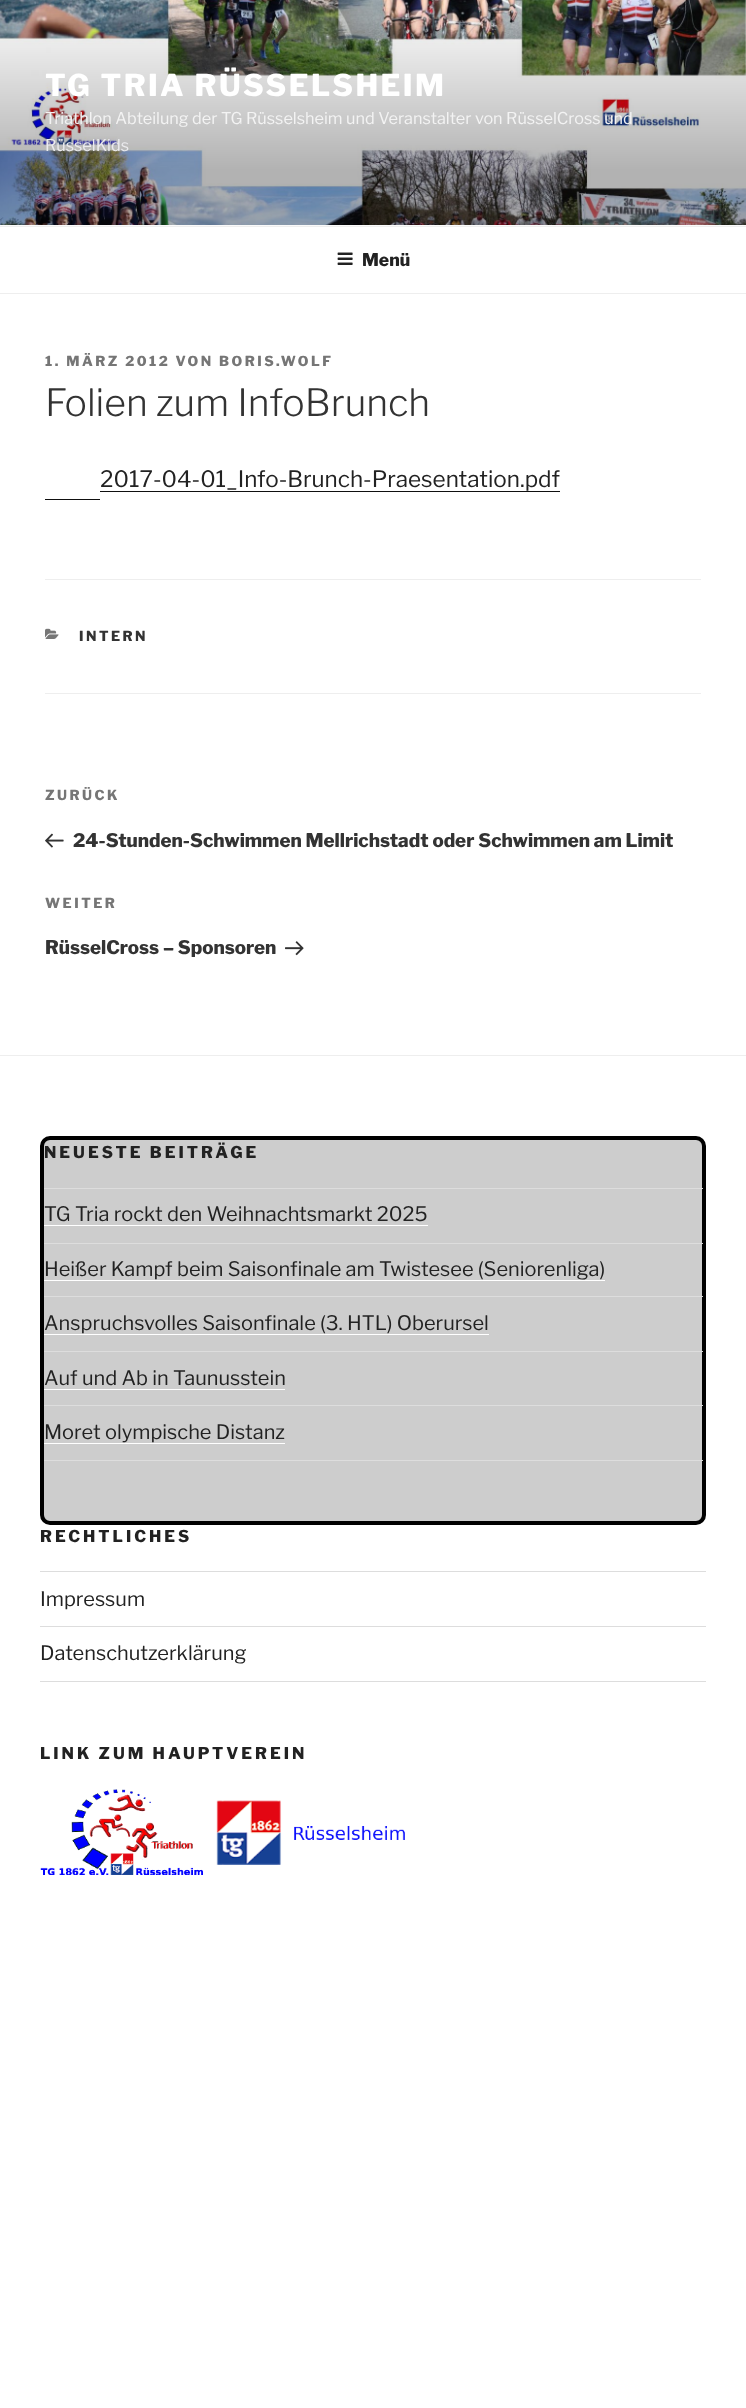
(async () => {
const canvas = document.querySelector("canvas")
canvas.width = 746
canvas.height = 2408
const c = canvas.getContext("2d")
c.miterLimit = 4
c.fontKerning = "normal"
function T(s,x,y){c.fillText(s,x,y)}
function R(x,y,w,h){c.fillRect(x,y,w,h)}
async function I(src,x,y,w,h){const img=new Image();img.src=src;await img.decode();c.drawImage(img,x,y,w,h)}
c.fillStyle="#fff"
R(0,0,746,2408)
c.fillStyle="#fafafa"
R(0,225,746,1)
await I("1.png",0,0,746,225)
c.letterSpacing="2.4px"
c.font="100 30px Libre Franklin"
c.fillStyle="#fff"
T("TG TRIA RÜSSELSHEIM",45,96)
c.letterSpacing="0px"
c.font="100 16.25px 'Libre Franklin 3'"
c.fillStyle="#f3f3f3"
T("Triathlon Abteilung der TG Rüsselsheim und Veranstalter von RüsselCross und",45,124)
c.fillStyle="#ebebee"
T("RüsselKids",45,151)
c.fillStyle="#eee"
R(0,226,746,1)
R(0,293,746,1)
await I("2.png",337,252,16,13)
c.font="100 17.5px Libre Franklin"
c.fillStyle="#222"
T("Menü",362,266)
c.letterSpacing="2.5px"
c.font="100 13.75px Libre Franklin"
c.fillStyle="#767676"
T("1. MÄRZ 2012 VON BORIS.WOLF",45,366)
c.letterSpacing="0px"
c.font="100 37.5px 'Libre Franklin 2'"
c.fillStyle="#333"
T("Folien zum InfoBrunch",45,416)
c.font="100 22.5px 'Libre Franklin 3'"
c.fillStyle="#222"
T("2017-04-01_Info-Brunch-Praesentation.pdf",100,487)
c.fillStyle="#0f0f0f"
R(45,499,55,1)
R(100,491,460,1)
c.fillStyle="#eee"
R(45,579,656,1)
R(45,693,656,1)
await I("3.png",45,628,14,11)
c.letterSpacing="2.5px"
c.font="100 13.75px Libre Franklin"
c.fillStyle="#333"
T("INTERN",79,641)
c.fillStyle="#767676"
T("ZURÜCK",45,800)
await I("4.png",45,833,19,15)
c.letterSpacing="0px"
c.font="100 18.75px Libre Franklin"
c.fillStyle="#333"
T("24-Stunden-Schwimmen Mellrichstadt oder Schwimmen am Limit",73,847)
c.letterSpacing="2.5px"
c.font="100 13.75px Libre Franklin"
c.fillStyle="#767676"
T("WEITER",45,908)
c.letterSpacing="0px"
c.font="100 18.75px Libre Franklin"
c.fillStyle="#333"
T("RüsselCross – Sponsoren",45,954)
await I("5.png",285,941,19,15)
c.fillStyle="#eee"
R(0,1055,746,1)
c.fillStyle="#cdcdcd"
c.beginPath()
c.roundRect(42,1138,662,385,8)
c.fill()
c.strokeStyle="#000"
c.lineWidth=4
c.stroke()
c.letterSpacing="3px"
c.font="100 16.25px Libre Franklin"
c.fillStyle="#222"
T("NEUESTE BEITRÄGE",44,1158)
c.fillStyle="#ddd"
R(44,1188,659,1)
R(44,1243,659,1)
c.letterSpacing="0px"
c.font="100 20px 'Libre Franklin 3'"
c.fillStyle="#222"
T("TG Tria rockt den Weihnachtsmarkt 2025",44,1221)
c.fillStyle="#fff"
R(44,1225,384,1)
c.fillStyle="#ddd"
R(44,1296,659,1)
c.fillStyle="#222"
T("Heißer Kampf beim Saisonfinale am Twistesee (Seniorenliga)",44,1276)
c.fillStyle="#fff"
R(44,1280,561,1)
c.fillStyle="#ddd"
R(44,1351,659,1)
c.fillStyle="#222"
T("Anspruchsvolles Saisonfinale (3. HTL) Oberursel",44,1330)
c.fillStyle="#fff"
R(44,1334,445,1)
c.fillStyle="#ddd"
R(44,1405,659,1)
c.fillStyle="#222"
T("Auf und Ab in Taunusstein",44,1385)
c.fillStyle="#fff"
R(44,1389,241,1)
c.fillStyle="#ddd"
R(44,1460,659,1)
c.fillStyle="#222"
T("Moret olympische Distanz",44,1439)
c.fillStyle="#fff"
R(44,1443,241,1)
c.letterSpacing="3px"
c.font="100 16.25px Libre Franklin"
c.fillStyle="#222"
T("RECHTLICHES",40,1542)
c.fillStyle="#ddd"
R(40,1571,666,1)
R(40,1626,666,1)
c.letterSpacing="0px"
c.font="100 20px 'Libre Franklin 3'"
c.fillStyle="#222"
T("Impressum",40,1606)
c.fillStyle="#ddd"
R(40,1681,666,1)
c.fillStyle="#222"
T("Datenschutzerklärung",40,1660)
c.letterSpacing="3px"
c.font="100 16.25px Libre Franklin"
T("LINK ZUM HAUPTVEREIN",40,1759)
await I("6.png",40,1789,365,86)
})()
